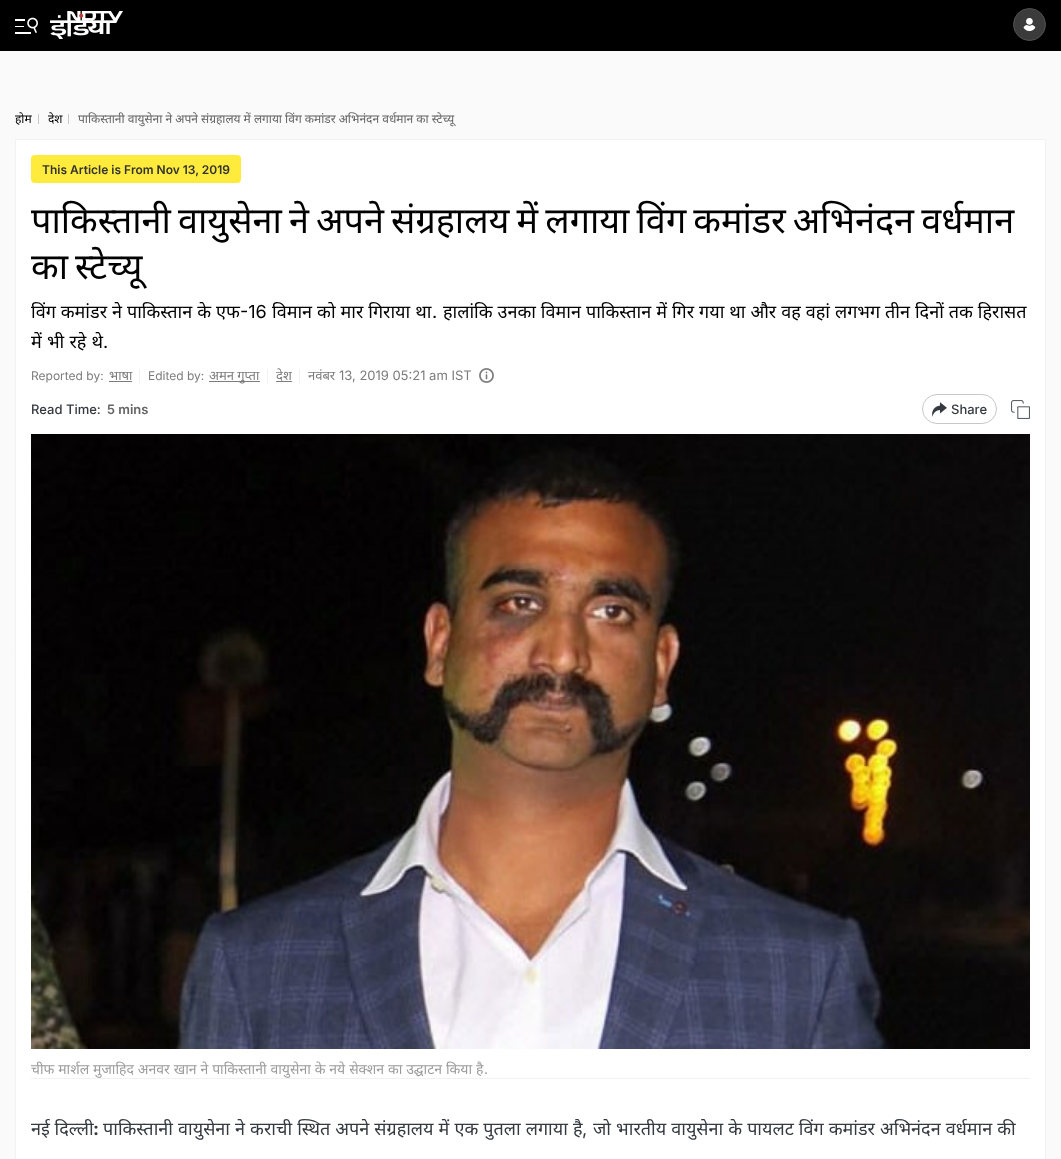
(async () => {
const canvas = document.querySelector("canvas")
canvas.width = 1061
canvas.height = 1159
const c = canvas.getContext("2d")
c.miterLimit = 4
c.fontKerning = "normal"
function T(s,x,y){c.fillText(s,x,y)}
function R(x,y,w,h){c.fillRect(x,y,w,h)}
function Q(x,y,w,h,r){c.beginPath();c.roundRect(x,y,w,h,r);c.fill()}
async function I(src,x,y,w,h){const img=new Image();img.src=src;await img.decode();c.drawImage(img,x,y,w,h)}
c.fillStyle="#fafafa"
R(0,0,1061,1159)
c.fillStyle="#000"
R(0,0,1061,51)
await I("1.png",15,17,23,17)
await I("2.png",50,11,73,28)
c.fillStyle="#3b3b3b"
c.beginPath()
c.arc(1029.5,24.5,16,0,7)
c.fill()
c.strokeStyle="#525252"
c.stroke()
await I("3.png",1023,17,13,15)
c.font="12px Noto Sans"
c.fillStyle="#000"
T("होम",15,123)
c.fillStyle="#c8c8c8"
R(38,114,1,10)
c.fillStyle="#000"
T("देश",48,123)
c.fillStyle="#c8c8c8"
R(68,114,1,10)
c.fillStyle="#646464"
T("पाकिस्तानी वायुसेना ने अपने संग्रहालय में लगाया विंग कमांडर अभिनंदन वर्धमान का स्टेच्यू",78,123)
c.fillStyle="#fff"
c.beginPath()
c.rect(15.5,139.5,1030,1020)
c.fill()
c.strokeStyle="#f2f2f2"
c.stroke()
c.fillStyle="#ffeb3b"
Q(31,155,210,28,4)
c.font="600 12px Inter"
c.fillStyle="#323232"
T("This Article is From Nov 13, 2019",42,174)
c.wordSpacing="-2.25px"
c.font="36px Noto Sans"
c.fillStyle="#000"
T("पाकिस्तानी वायुसेना ने अपने संग्रहालय में लगाया विंग कमांडर अभिनंदन वर्धमान",31,233)
T("का स्टेच्यू",31,279)
c.wordSpacing="0.3px"
c.font="18px Noto Sans"
T("विंग कमांडर ने पाकिस्तान के एफ",31,318)
c.wordSpacing="0px"
c.font="18px Inter"
T("-16",240,318)
c.wordSpacing="0.3px"
c.font="18px Noto Sans"
T("विमान को मार गिराया था",272,318)
c.wordSpacing="0px"
c.font="18px Inter"
T(".",432,318)
c.wordSpacing="0.3px"
c.font="18px Noto Sans"
T("हालांकि उनका विमान पाकिस्तान में गिर गया था और वह वहां लगभग तीन दिनों तक हिरासत",443,318)
c.wordSpacing="0.5px"
T("में भी रहे थे",31,348)
c.wordSpacing="0px"
c.font="18px Inter"
T(".",103,348)
c.font="12px Inter"
c.fillStyle="#7c7c7c"
T("Reported by:",31,380)
c.font="13px Noto Sans"
T("भाषा",109,380)
R(109,381,23,1)
c.fillStyle="#f1f1f1"
R(139,369,1,15)
c.font="12px Inter"
c.fillStyle="#7c7c7c"
T("Edited by:",148,380)
R(209,381,51,1)
c.font="13px Noto Sans"
T("अमन गुप्ता",209,380)
c.fillStyle="#f1f1f1"
R(267,369,1,15)
c.fillStyle="#7c7c7c"
T("देश",276,380)
R(276,381,16,1)
c.fillStyle="#f1f1f1"
R(299,369,1,15)
c.fillStyle="#7c7c7c"
T("नवंबर",308,380)
c.font="13px Inter"
T("13, 2019 05:21 am IST",339,380)
await I("4.png",479,368,15,15)
c.font="500 13px Inter"
c.fillStyle="#343a40"
T("Read Time:",31,414)
c.font="600 13px Inter"
c.fillStyle="#646464"
T("5 mins",107,414)
c.beginPath()
c.roundRect(922.5,394.5,74,29,14.5)
c.strokeStyle="#c7c7c7"
c.stroke()
await I("5.png",932,402,15,15)
c.font="500 13px Inter"
c.fillStyle="#343a40"
T("Share",951,414)
await I("6.png",1011,400,19,19)
await I("7.png",31,434,999,615)
c.save()
c.beginPath()
c.rect(31,434,999,655)
c.clip()
c.wordSpacing="0.25px"
c.font="14px Noto Sans"
c.fillStyle="#9c9c9c"
T("चीफ मार्शल मुजाहिद अनवर खान ने पाकिस्तानी वायुसेना के नये सेक्शन का उद्घाटन किया है",31,1074)
c.restore()
c.font="14px Inter"
c.fillStyle="#9c9c9c"
T(".",484,1074)
c.fillStyle="#f1f1f1"
R(31,1078,999,1)
c.font="18px Noto Sans"
c.fillStyle="#343a40"
T("नई दिल्ली",31,1135)
c.font="bold 18px Inter"
T(":",93,1135)
c.wordSpacing="0.4px"
c.font="18px Noto Sans"
T("पाकिस्तानी वायुसेना ने कराची स्थित अपने संग्रहालय में एक पुतला लगाया है",103,1135)
c.wordSpacing="0px"
c.font="18px Inter"
T(",",582,1135)
c.wordSpacing="0.4px"
c.font="18px Noto Sans"
T("जो भारतीय वायुसेना के पायलट विंग कमांडर अभिनंदन वर्धमान की",593,1135)
})()
